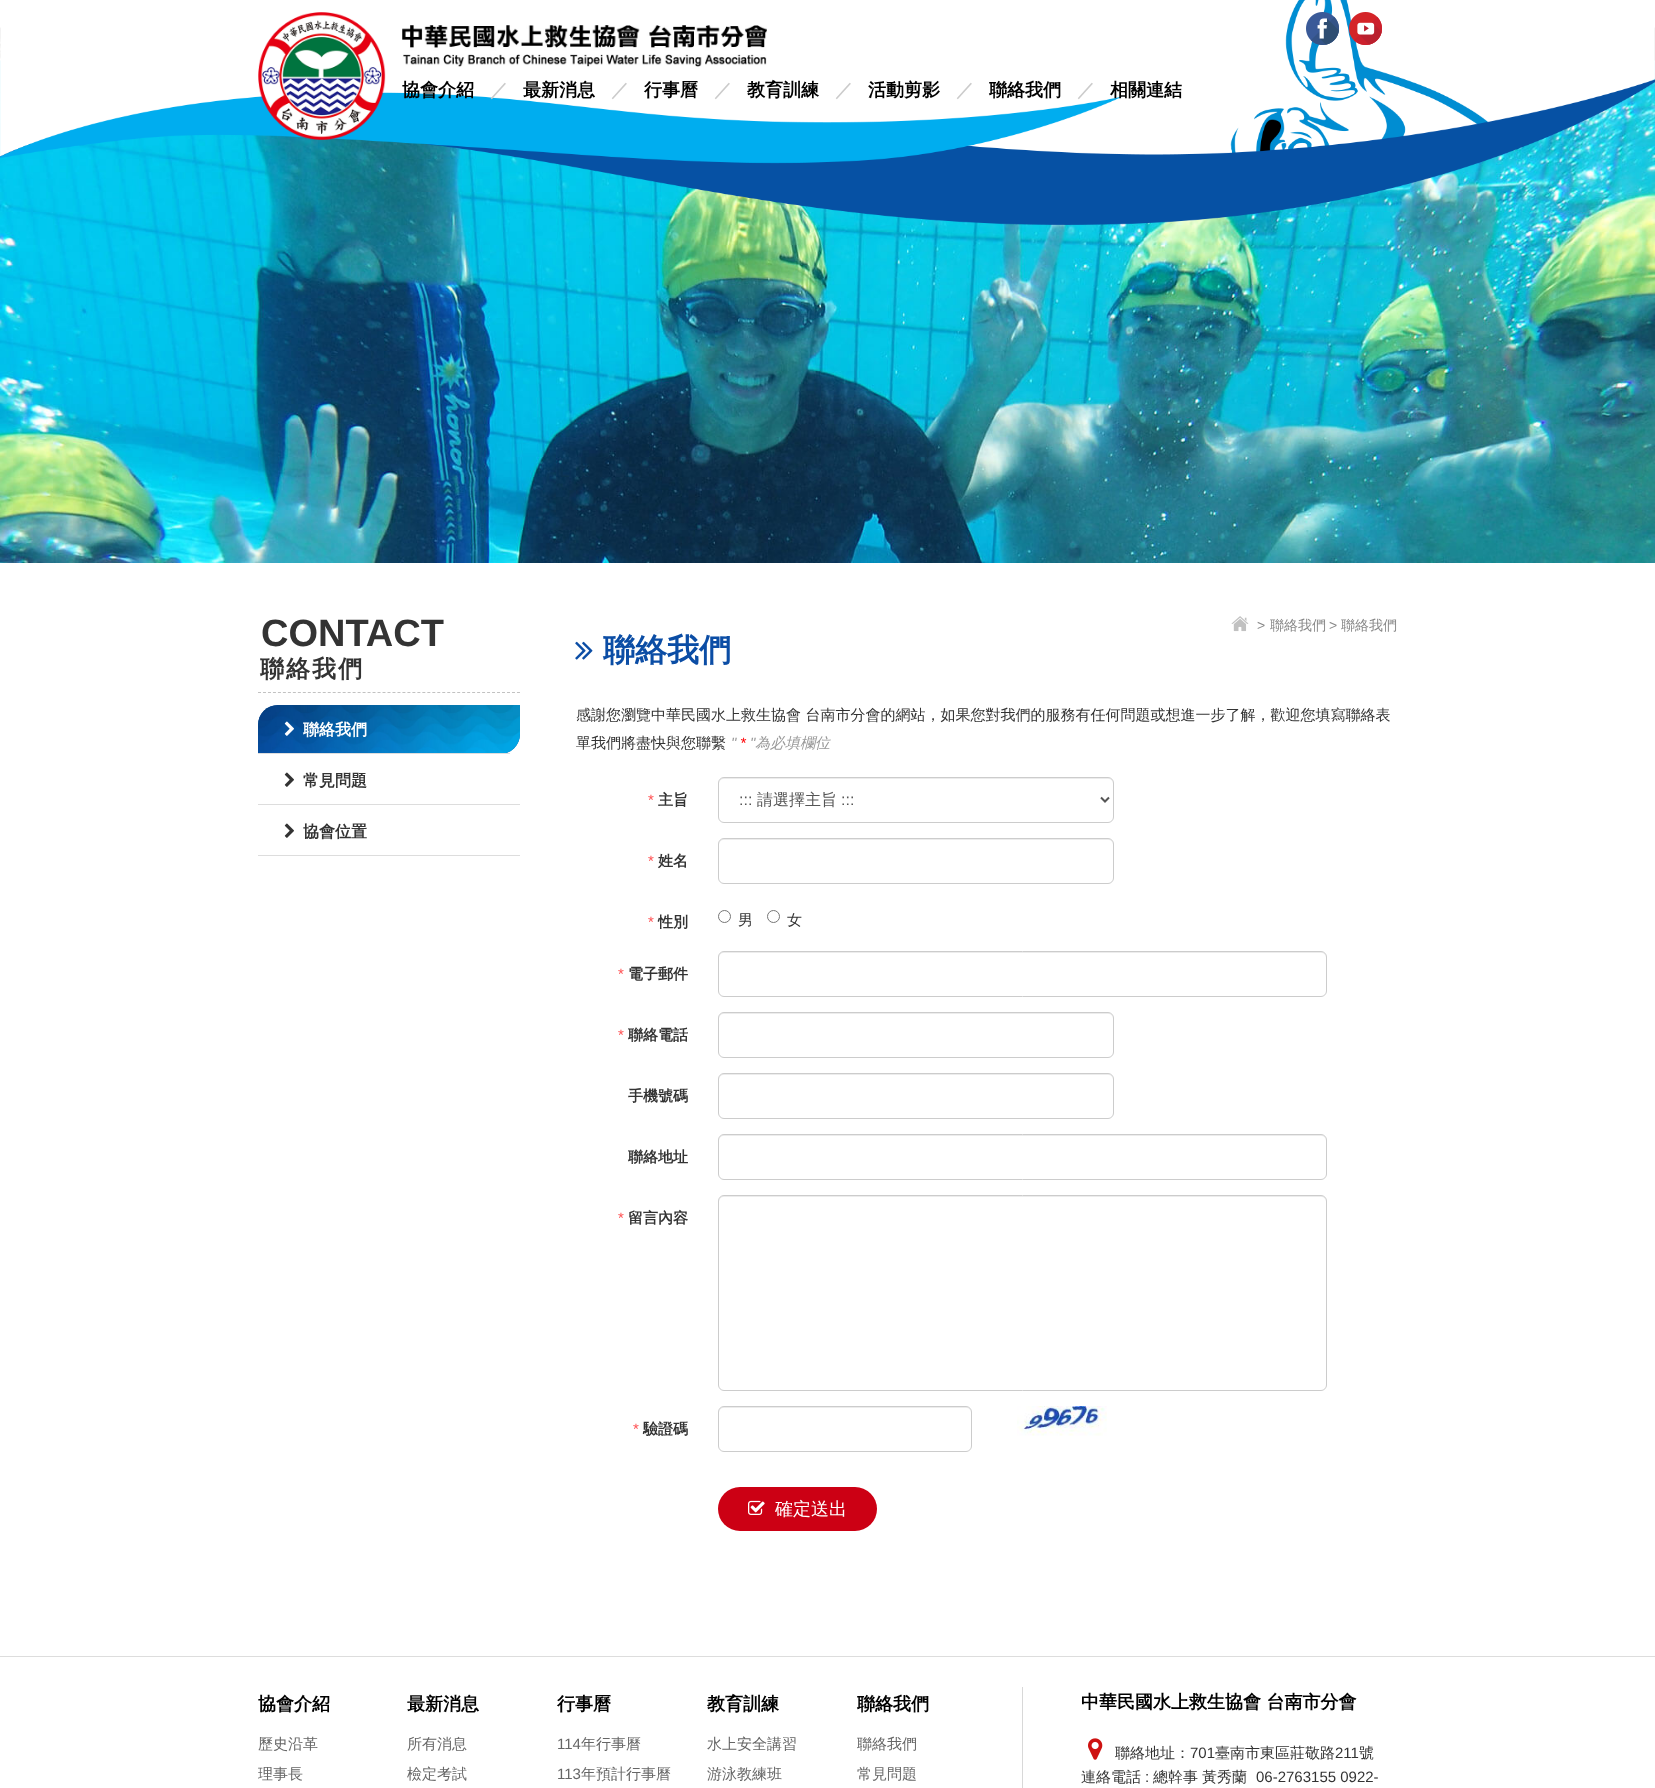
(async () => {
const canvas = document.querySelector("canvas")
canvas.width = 1655
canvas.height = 1788
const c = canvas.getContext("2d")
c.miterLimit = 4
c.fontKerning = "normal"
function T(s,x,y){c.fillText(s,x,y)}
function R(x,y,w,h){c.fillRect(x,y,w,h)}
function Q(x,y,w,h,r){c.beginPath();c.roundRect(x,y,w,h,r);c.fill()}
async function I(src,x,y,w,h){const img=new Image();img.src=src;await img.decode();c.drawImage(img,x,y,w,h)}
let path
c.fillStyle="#fff"
R(0,0,1655,1788)
await I("1.png",0,27,1655,536)
await I("2.png",0,0,1655,225)
await I("3.png",258,12,128,128)
await I("4.png",1306,12,33,33)
await I("5.png",1349,12,33,33)
await I("6.png",402,25,365,42)
c.font="bold 18px WenQuanYi Zen Hei"
c.fillStyle="#000"
T("協會介紹",402,96)
c.fillStyle="#cbcbcb"
T("／",490,96)
c.fillStyle="#000"
T("最新消息",523,96)
c.fillStyle="#cbcbcb"
T("／",611,96)
c.fillStyle="#000"
T("行事曆",644,96)
c.fillStyle="#cbcbcb"
T("／",714,96)
c.fillStyle="#000"
T("教育訓練",747,96)
c.fillStyle="#cbcbcb"
T("／",835,96)
c.fillStyle="#000"
T("活動剪影",868,96)
c.fillStyle="#cbcbcb"
T("／",956,96)
c.fillStyle="#000"
T("聯絡我們",989,96)
c.fillStyle="#cbcbcb"
T("／",1077,96)
c.fillStyle="#000"
T("相關連結",1110,96)
c.font="bold 38px Liberation Sans"
c.fillStyle="#333"
T("CONTACT",261,646)
path = new Path2D("M258 692.5h262")
c.strokeStyle="#c2c2c2"
c.setLineDash([3,1.98])
c.stroke(path)
c.letterSpacing="2px"
c.font="bold 24px WenQuanYi Zen Hei"
T("聯絡我們",260,677)
c.fillStyle="#0f53a2"
c.beginPath()
c.roundRect(258,705,262,49,[20,0,20,0])
c.fill()
await I("7.png",258,705,262,48)
c.fillStyle="#ddd"
R(258,753,252,1)
await I("8.png",284,721,10,15)
c.letterSpacing="0px"
c.font="bold 16px WenQuanYi Zen Hei"
c.fillStyle="#fff"
T("聯絡我們",303,735)
c.fillStyle="#ddd"
R(258,804,262,1)
await I("9.png",284,772,10,15)
c.fillStyle="#333"
T("常見問題",303,786)
c.fillStyle="#ddd"
R(258,855,262,1)
await I("9.png",284,823,10,15)
c.fillStyle="#333"
T("協會位置",303,837)
await I("10.png",1231,616,18,16)
c.font="14px Liberation Sans"
c.fillStyle="#888"
T(">",1257,630)
c.font="500 14px WenQuanYi Zen Hei"
T("聯絡我們",1270,630)
c.font="14px Liberation Sans"
T(">",1329,630)
c.font="500 14px WenQuanYi Zen Hei"
T("聯絡我們",1341,630)
await I("11.png",575,641,18,19)
c.font="bold 32px WenQuanYi Zen Hei"
c.fillStyle="#0b4da5"
T("聯絡我們",603,661)
c.font="500 15px WenQuanYi Zen Hei"
c.fillStyle="#333"
T("感謝您瀏覽中華民國水上救生協會 台南市分會的網站，如果您對我們的服務有任何問題或想進一步了解，歡迎您填寫聯絡表",576,720)
T("單我們將盡快與您聯繫",576,748)
c.font="italic 15px Liberation Sans"
c.fillStyle="#999"
T("\"",731,748)
c.fillStyle="#ff0004"
T("*",740,748)
c.fillStyle="#999"
T("\"",750,748)
c.font="italic 500 15px WenQuanYi Zen Hei"
T("為必填欄位",755,748)
c.font="15px Liberation Sans"
c.fillStyle="#ff5052"
T("*",648,805)
c.font="bold 15px WenQuanYi Zen Hei"
c.fillStyle="#333"
T("主旨",658,805)
c.fillStyle="#ececec"
path = new Path2D("M724 779h384c3 0 5 2 5 5v-1c0-3-2-5-5-5h-384c-3 0-5 2-5 5v1c0-3 2-5 5-5z")
c.fill(path)
c.beginPath()
c.roundRect(718.5,777.5,395,45,5.5)
c.strokeStyle="#ccc"
c.setLineDash([])
c.stroke()
path = new Path2D("M1101 797.5l4 4l4-4")
c.strokeStyle="#555"
c.lineWidth=2
c.stroke(path)
c.font="16px Liberation Sans"
c.fillStyle="#555"
T(":::",739,805)
c.font="500 16px WenQuanYi Zen Hei"
T("請選擇主旨",757,805)
c.font="16px Liberation Sans"
T(":::",841,805)
c.font="15px Liberation Sans"
c.fillStyle="#ff5052"
T("*",648,866)
c.font="bold 15px WenQuanYi Zen Hei"
c.fillStyle="#333"
T("姓名",658,866)
c.fillStyle="#ececec"
path = new Path2D("M724 840h384c3 0 5 2 5 5v-1c0-3-2-5-5-5h-384c-3 0-5 2-5 5v1c0-3 2-5 5-5z")
c.fill(path)
c.beginPath()
c.roundRect(718.5,838.5,395,45,5.5)
c.strokeStyle="#ccc"
c.lineWidth=1
c.stroke()
c.font="15px Liberation Sans"
c.fillStyle="#ff5052"
T("*",648,927)
c.font="bold 15px WenQuanYi Zen Hei"
c.fillStyle="#333"
T("性別",658,927)
c.beginPath()
c.arc(724.5,916.5,6,0,7)
c.strokeStyle="#767676"
c.stroke()
c.font="500 15px WenQuanYi Zen Hei"
T("男",738,925)
c.beginPath()
c.arc(773.5,916.5,6,0,7)
c.stroke()
T("女",787,925)
c.font="15px Liberation Sans"
c.fillStyle="#ff5052"
T("*",618,979)
c.font="bold 15px WenQuanYi Zen Hei"
c.fillStyle="#333"
T("電子郵件",628,979)
c.fillStyle="#ececec"
path = new Path2D("M724 953h597c3 0 5 2 5 5v-1c0-3-2-5-5-5h-597c-3 0-5 2-5 5v1c0-3 2-5 5-5z")
c.fill(path)
c.beginPath()
c.roundRect(718.5,951.5,608,45,5.5)
c.strokeStyle="#ccc"
c.stroke()
c.font="15px Liberation Sans"
c.fillStyle="#ff5052"
T("*",618,1040)
c.font="bold 15px WenQuanYi Zen Hei"
c.fillStyle="#333"
T("聯絡電話",628,1040)
c.fillStyle="#ececec"
path = new Path2D("M724 1014h384c3 0 5 2 5 5v-1c0-3-2-5-5-5h-384c-3 0-5 2-5 5v1c0-3 2-5 5-5z")
c.fill(path)
c.beginPath()
c.roundRect(718.5,1012.5,395,45,5.5)
c.stroke()
c.fillStyle="#333"
T("手機號碼",628,1101)
c.fillStyle="#ececec"
path = new Path2D("M724 1075h384c3 0 5 2 5 5v-1c0-3-2-5-5-5h-384c-3 0-5 2-5 5v1c0-3 2-5 5-5z")
c.fill(path)
c.beginPath()
c.roundRect(718.5,1073.5,395,45,5.5)
c.stroke()
c.fillStyle="#333"
T("聯絡地址",628,1162)
c.fillStyle="#ececec"
path = new Path2D("M724 1136h597c3 0 5 2 5 5v-1c0-3-2-5-5-5h-597c-3 0-5 2-5 5v1c0-3 2-5 5-5z")
c.fill(path)
c.beginPath()
c.roundRect(718.5,1134.5,608,45,5.5)
c.stroke()
c.font="15px Liberation Sans"
c.fillStyle="#ff5052"
T("*",618,1223)
c.font="bold 15px WenQuanYi Zen Hei"
c.fillStyle="#333"
T("留言內容",628,1223)
c.fillStyle="#ececec"
path = new Path2D("M724 1197h597c3 0 5 2 5 5v-1c0-3-2-5-5-5h-597c-3 0-5 2-5 5v1c0-3 2-5 5-5z")
c.fill(path)
c.beginPath()
c.roundRect(718.5,1195.5,608,195,5.5)
c.stroke()
c.font="15px Liberation Sans"
c.fillStyle="#ff5052"
T("*",633,1434)
c.font="bold 15px WenQuanYi Zen Hei"
c.fillStyle="#333"
T("驗證碼",643,1434)
c.fillStyle="#ececec"
path = new Path2D("M724 1408h242c3 0 5 2 5 5v-1c0-3-2-5-5-5h-242c-3 0-5 2-5 5v1c0-3 2-5 5-5z")
c.fill(path)
c.beginPath()
c.roundRect(718.5,1406.5,253,45,5.5)
c.stroke()
await I("12.png",1017,1406,90,30)
c.fillStyle="#cc0014"
Q(718,1487,159,44,22)
await I("13.png",748,1500,17,15)
c.font="500 18px WenQuanYi Zen Hei"
c.fillStyle="#fff"
T("確定送出",775,1515)
c.fillStyle="#ddd"
R(0,1656,1655,1)
c.fillStyle="#d8d8d8"
R(1022,1687,1,101)
c.font="bold 18px WenQuanYi Zen Hei"
c.fillStyle="#000"
T("協會介紹",258,1710)
c.font="500 15px WenQuanYi Zen Hei"
c.fillStyle="#666"
T("歷史沿革",258,1749)
T("理事長",258,1779)
c.font="bold 18px WenQuanYi Zen Hei"
c.fillStyle="#000"
T("最新消息",407,1710)
c.font="500 15px WenQuanYi Zen Hei"
c.fillStyle="#666"
T("所有消息",407,1749)
T("檢定考試",407,1779)
c.font="bold 18px WenQuanYi Zen Hei"
c.fillStyle="#000"
T("行事曆",557,1710)
c.font="15px Liberation Sans"
c.fillStyle="#666"
T("114",557,1749)
c.font="500 15px WenQuanYi Zen Hei"
T("年行事曆",581,1749)
c.font="15px Liberation Sans"
T("113",557,1779)
c.font="500 15px WenQuanYi Zen Hei"
T("年預計行事曆",581,1779)
c.font="bold 18px WenQuanYi Zen Hei"
c.fillStyle="#000"
T("教育訓練",707,1710)
c.font="500 15px WenQuanYi Zen Hei"
c.fillStyle="#666"
T("水上安全講習",707,1749)
T("游泳教練班",707,1779)
c.font="bold 18px WenQuanYi Zen Hei"
c.fillStyle="#000"
T("聯絡我們",857,1710)
c.font="500 15px WenQuanYi Zen Hei"
c.fillStyle="#666"
T("聯絡我們",857,1749)
T("常見問題",857,1779)
c.font="bold 18px WenQuanYi Zen Hei"
c.fillStyle="#000"
T("中華民國水上救生協會 台南市分會",1081,1708)
await I("14.png",1088,1738,15,22)
c.font="500 15px WenQuanYi Zen Hei"
c.fillStyle="#333"
T("聯絡地址：",1115,1758)
c.font="15px Liberation Sans"
T("701",1190,1758)
c.font="500 15px WenQuanYi Zen Hei"
T("臺南市東區莊敬路",1215,1758)
c.font="15px Liberation Sans"
T("211",1335,1758)
c.font="500 15px WenQuanYi Zen Hei"
T("號",1359,1758)
T("連絡電話",1081,1782)
c.font="15px Liberation Sans"
T(":",1145,1782)
c.font="500 15px WenQuanYi Zen Hei"
T("總幹事",1153,1782)
T("黃秀蘭",1202,1782)
c.font="15px Liberation Sans"
T("06-2763155 0922-",1256,1782)
})()
